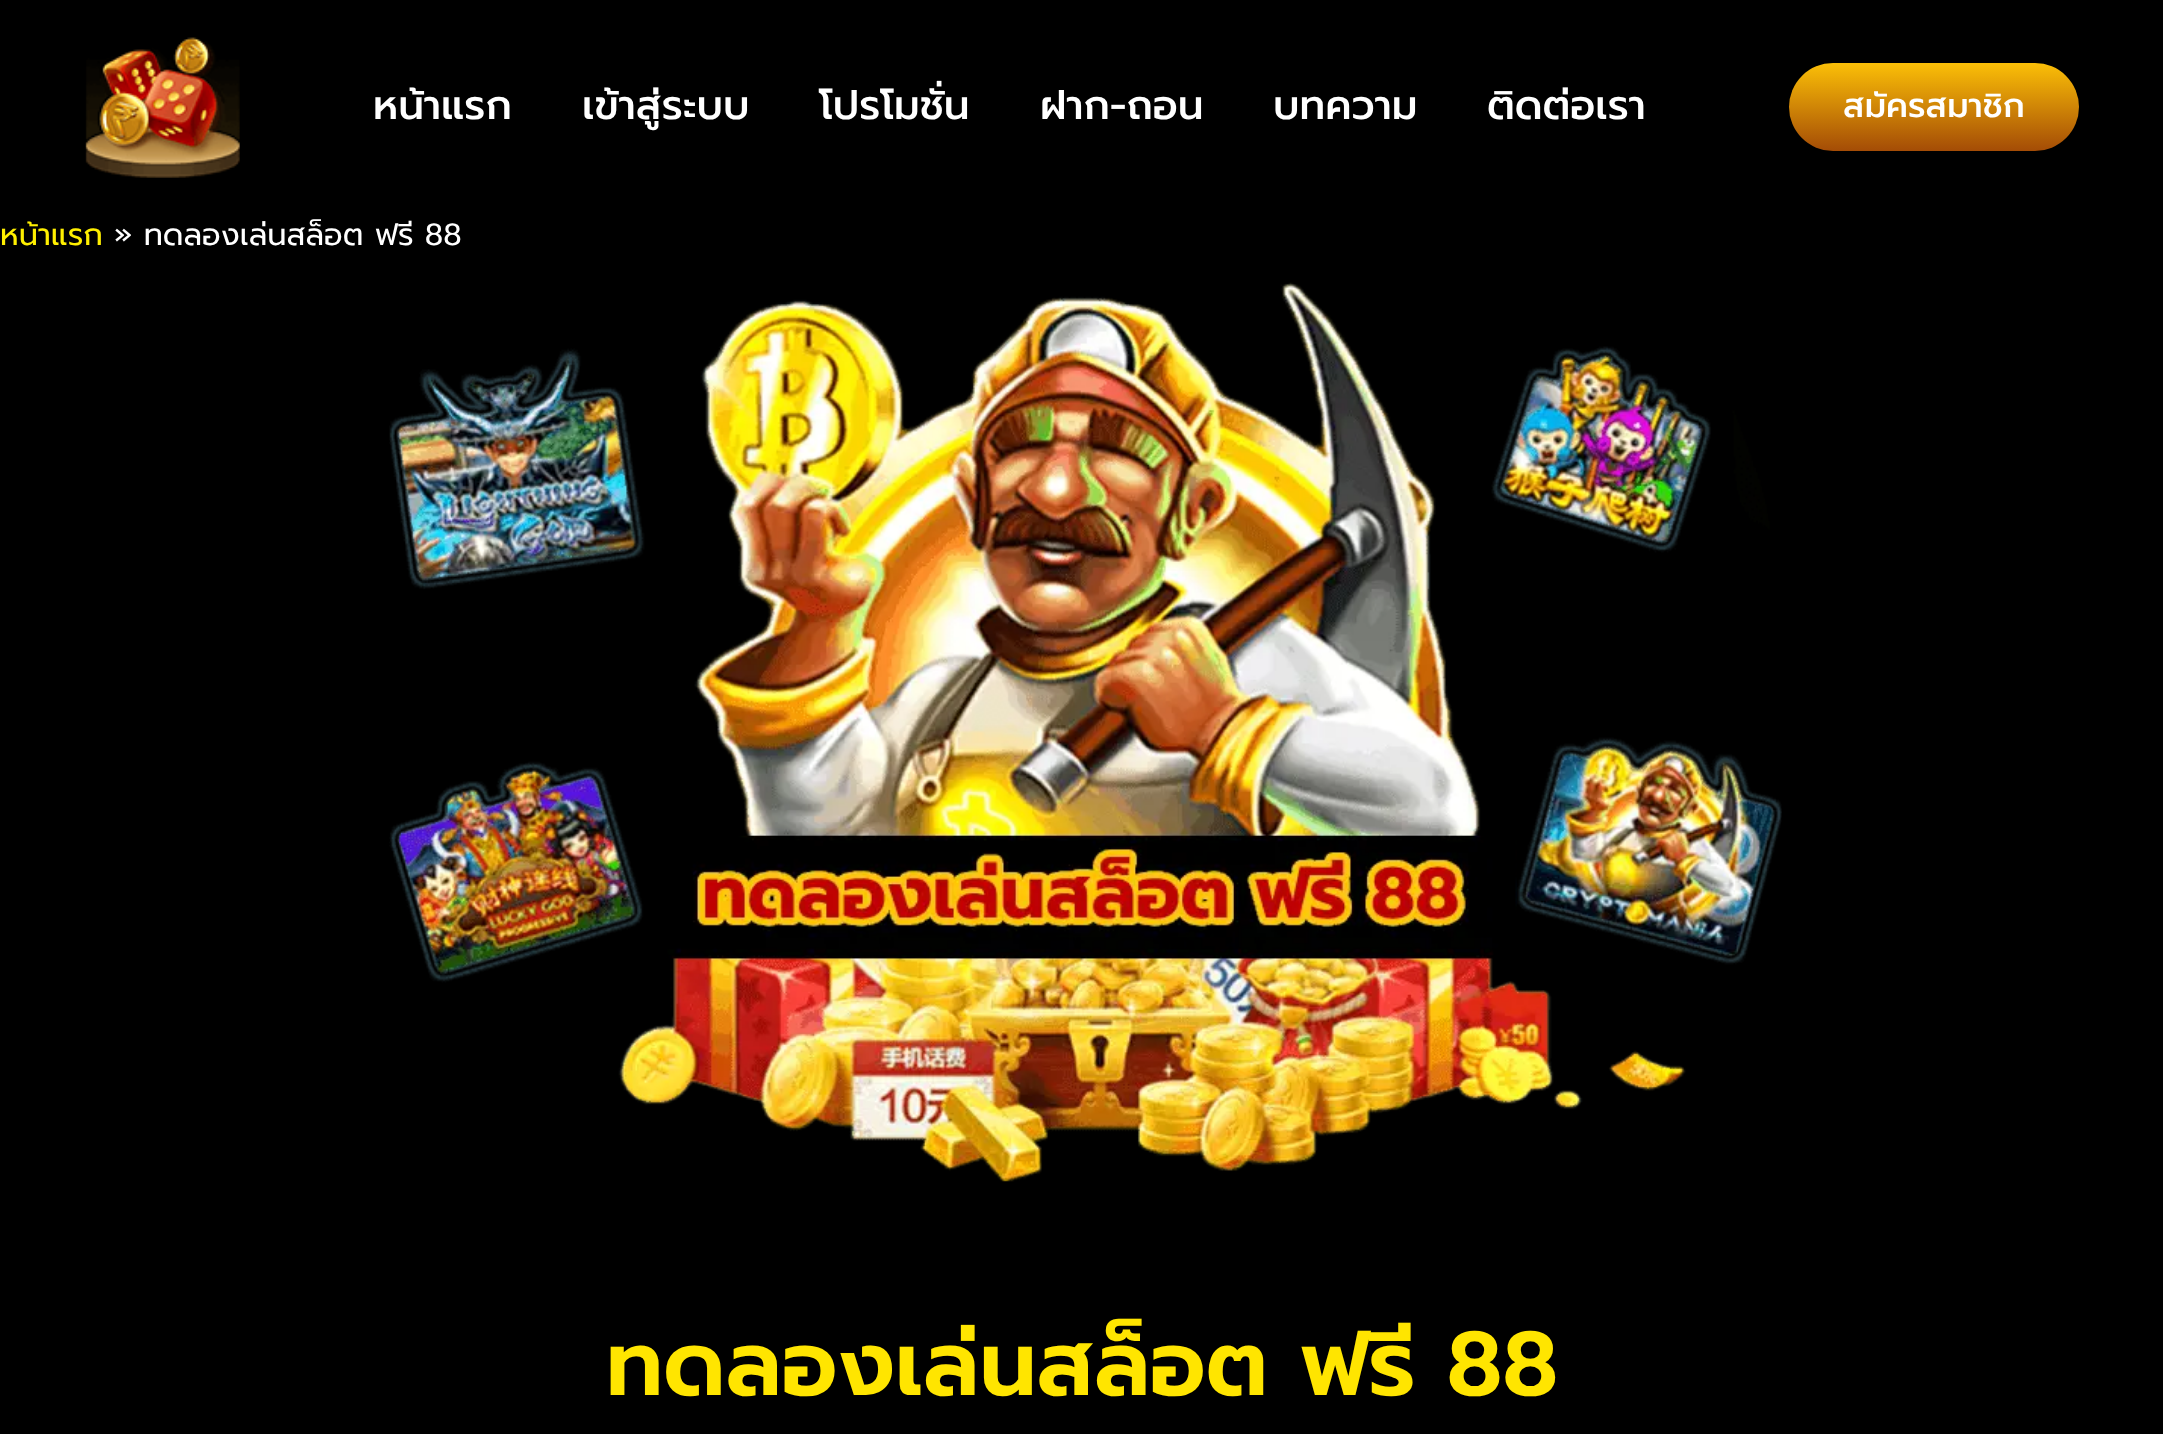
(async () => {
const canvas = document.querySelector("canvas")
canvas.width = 2163
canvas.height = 1434
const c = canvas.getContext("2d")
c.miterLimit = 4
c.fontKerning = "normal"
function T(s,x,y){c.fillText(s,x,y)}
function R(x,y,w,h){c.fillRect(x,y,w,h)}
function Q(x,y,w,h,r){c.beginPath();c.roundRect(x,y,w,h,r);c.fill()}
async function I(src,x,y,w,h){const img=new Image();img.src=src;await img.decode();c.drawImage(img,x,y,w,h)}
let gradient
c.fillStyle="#000"
R(0,0,2163,1434)
await I("1.png",85,37,155,141)
c.font="500 40.5px Prompt"
c.fillStyle="#fff"
T("หน้าแรก",373,119)
T("เข้าสู่ระบบ",582,119)
T("โปรโมชั่น",819,119)
T("ฝาก-ถอน",1040,119)
T("บทความ",1273,119)
T("ติดต่อเรา",1487,119)
gradient = c.createLinearGradient(1934,63,1934,151)
gradient.addColorStop(0,"#fbbf07")
gradient.addColorStop(1,"#a44c06")
c.fillStyle = gradient
Q(1789,63,290,88,44)
c.font="500 33.75px Prompt"
c.fillStyle="#fff"
T("สมัครสมาชิก",1843,117)
c.font="30.6px Prompt"
c.fillStyle="#ffef00"
T("หน้าแรก",0,245)
c.fillStyle="#fff"
T("» ทดลองเล่นสล็อต ฟรี 88",114,245)
await I("2.png",389,282,1393,900)
c.font="600 90px Prompt"
c.fillStyle="#ffe500"
T("ทดลองเล่นสล็อต ฟรี 88",606,1395)
})()
